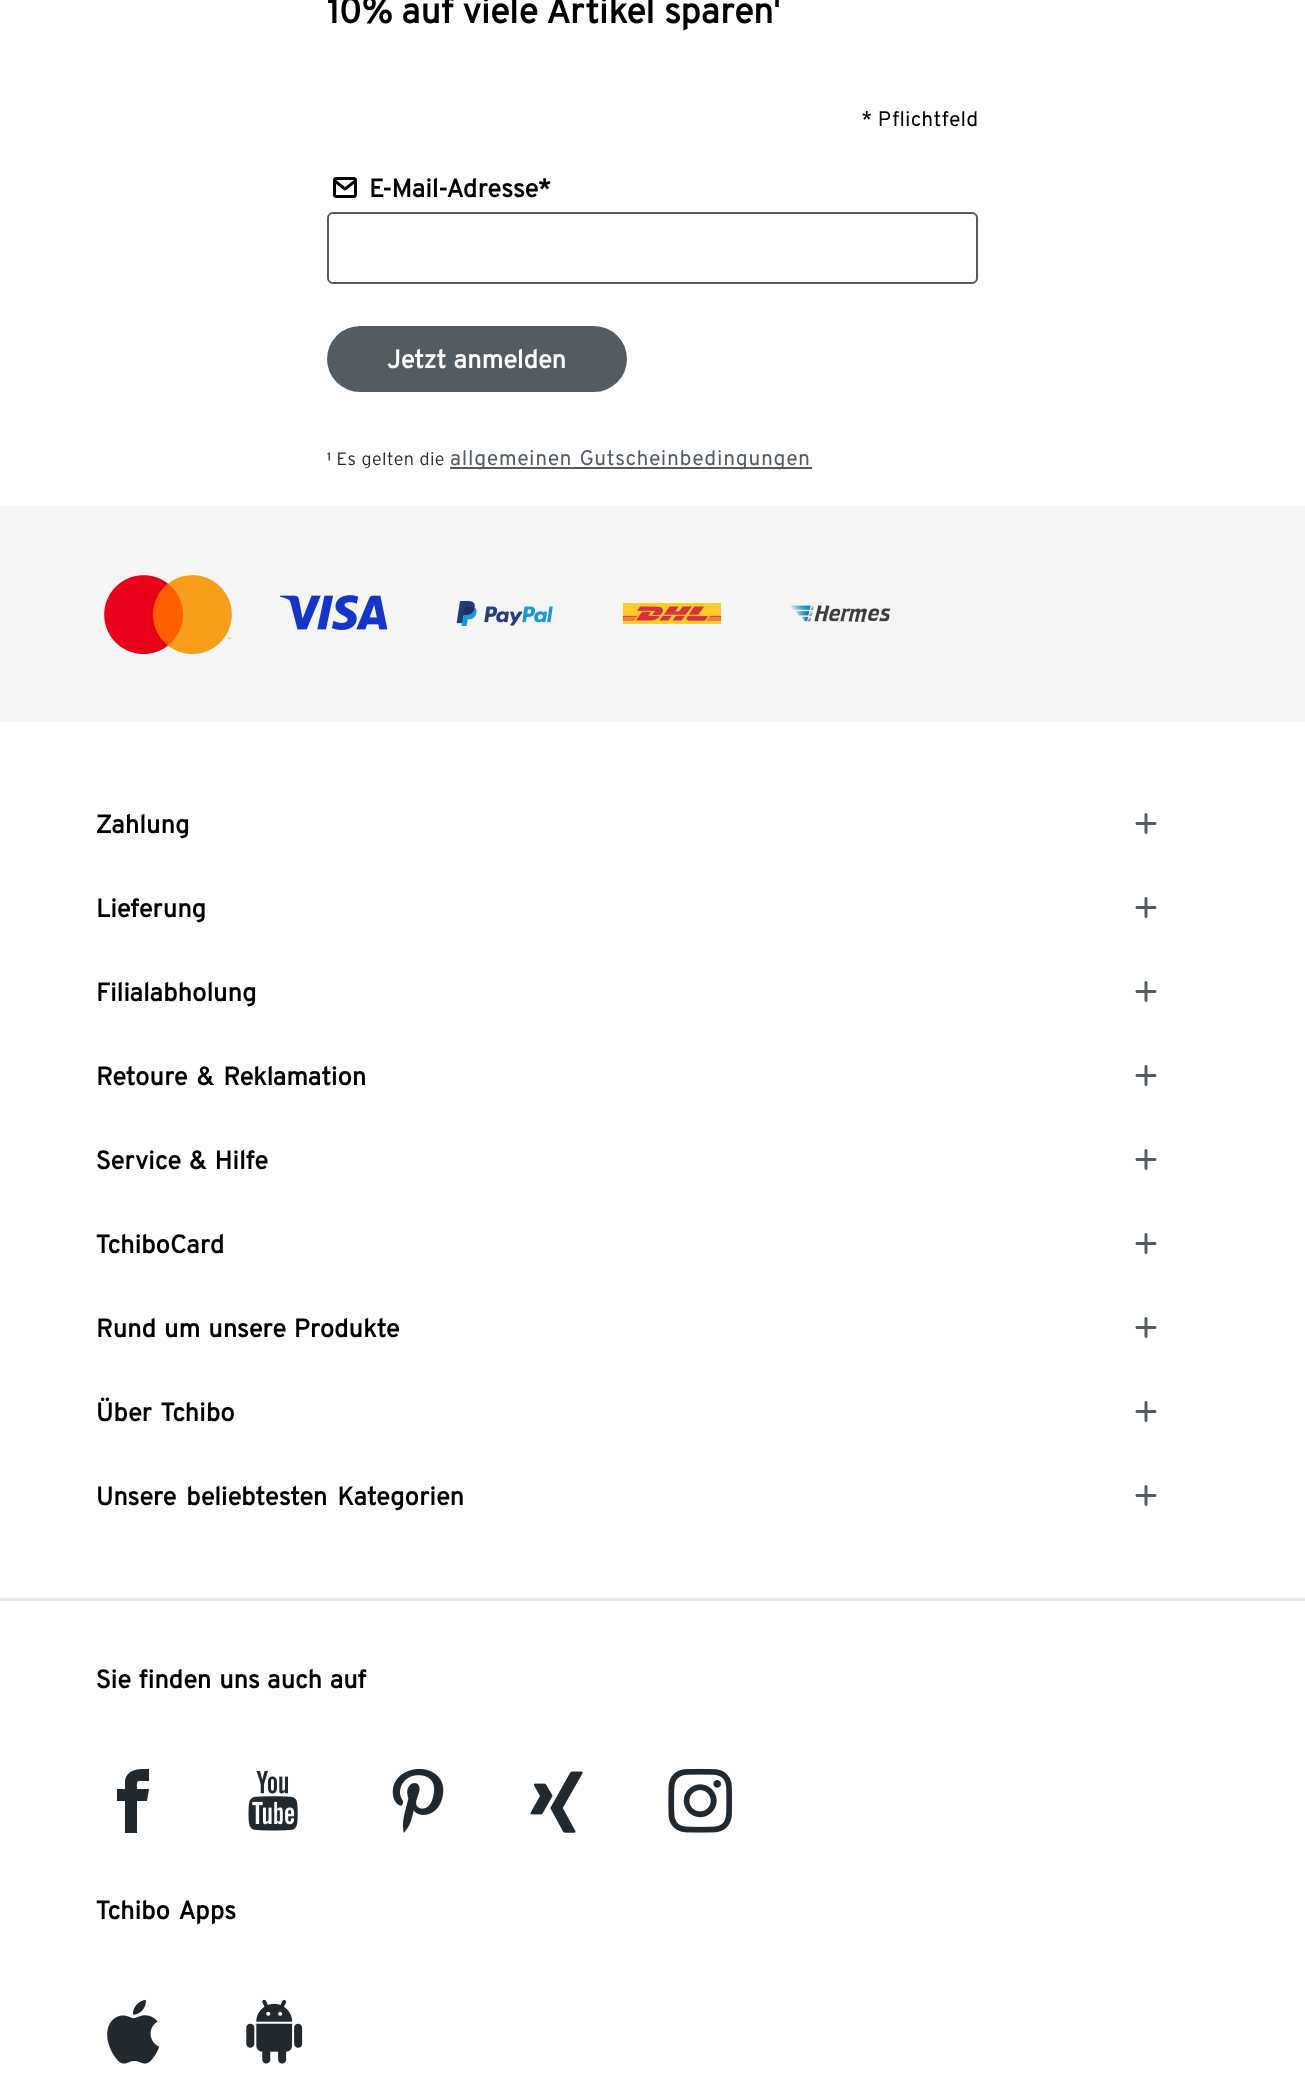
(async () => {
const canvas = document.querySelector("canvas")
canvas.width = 1305
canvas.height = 2092
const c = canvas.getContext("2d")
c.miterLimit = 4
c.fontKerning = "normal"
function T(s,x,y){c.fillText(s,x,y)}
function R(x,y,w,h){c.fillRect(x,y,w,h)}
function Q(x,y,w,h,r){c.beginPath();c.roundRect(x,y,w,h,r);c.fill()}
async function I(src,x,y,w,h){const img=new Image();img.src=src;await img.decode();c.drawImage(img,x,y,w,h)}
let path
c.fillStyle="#fff"
R(0,0,1305,2092)
c.wordSpacing="1px"
c.font="bold 36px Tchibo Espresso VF"
c.fillStyle="#000"
T("10% auf viele Artikel sparen¹",327,23)
c.font="21px Tchibo Espresso VF"
T("* Pflichtfeld",862,126)
await I("1.png",333,177,24,21)
c.wordSpacing="0px"
c.font="bold 25.5px Tchibo Espresso VF"
T("E-Mail-Adresse*",369,197)
c.beginPath()
c.roundRect(328,213,649,70,5)
c.strokeStyle="#545c63"
c.lineWidth=2
c.stroke()
c.fillStyle="#545c63"
Q(327,326,300,66,33)
c.wordSpacing="2px"
c.fillStyle="#fff"
T("Jetzt anmelden",387,368)
c.letterSpacing="0.4px"
c.wordSpacing="0px"
c.font="300 18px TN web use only"
c.fillStyle="#21292f"
T("¹ Es gelten die",327,465)
c.fillStyle="#545c63"
R(450,467,362,2)
c.wordSpacing="2px"
c.font="21px Tchibo Espresso VF"
T("allgemeinen Gutscheinbedingungen",450,465)
c.fillStyle="#f6f6f6"
R(0,506,1305,216)
await I("2.png",104,575,128,80)
await I("3.png",280,595,108,35)
await I("4.png",456,601,97,25)
await I("5.png",622,603,100,21)
await I("6.png",790,605,101,17)
c.letterSpacing="0px"
c.wordSpacing="0px"
c.font="bold 25.5px Tchibo Espresso VF"
c.fillStyle="#000"
T("Zahlung",96,833)
await I("7.png",1135,813,22,21)
T("Lieferung",96,917)
await I("7.png",1135,897,22,21)
T("Filialabholung",96,1001)
await I("7.png",1135,981,22,21)
c.wordSpacing="3px"
T("Retoure & Reklamation",96,1085)
await I("7.png",1135,1065,22,21)
c.wordSpacing="2px"
T("Service & Hilfe",96,1169)
await I("7.png",1135,1149,22,21)
c.wordSpacing="0px"
T("TchiboCard",96,1253)
await I("7.png",1135,1233,22,21)
c.wordSpacing="2px"
T("Rund um unsere Produkte",96,1337)
await I("7.png",1135,1317,22,21)
c.wordSpacing="3px"
T("Über Tchibo",96,1421)
await I("7.png",1135,1401,22,21)
c.wordSpacing="4px"
T("Unsere beliebtesten Kategorien",96,1505)
await I("7.png",1135,1485,22,21)
c.fillStyle="#e8e8e8"
R(0,1598,1305,3)
c.wordSpacing="2px"
c.fillStyle="#000"
T("Sie finden uns auch auf",96,1688)
c.fillStyle="#21292f"
path = new Path2D("M139 1781h10v-12c-9 0-21-1-24 11v9h-8v12h8v32h12v-32h10l2-12h-12c0-2-1-8 2-8z")
c.fill(path)
await I("8.png",248,1770,50,61)
await I("9.png",392,1768,52,65)
await I("10.png",530,1771,53,62)
await I("11.png",668,1768,64,65)
c.wordSpacing="3px"
c.fillStyle="#000"
T("Tchibo Apps",96,1919)
await I("12.png",107,1999,53,65)
await I("13.png",246,1999,57,65)
})()
